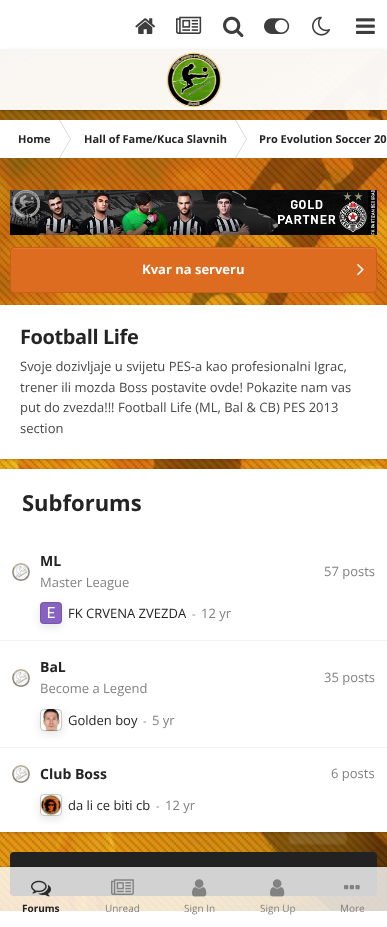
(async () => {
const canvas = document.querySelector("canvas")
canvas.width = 387
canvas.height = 927
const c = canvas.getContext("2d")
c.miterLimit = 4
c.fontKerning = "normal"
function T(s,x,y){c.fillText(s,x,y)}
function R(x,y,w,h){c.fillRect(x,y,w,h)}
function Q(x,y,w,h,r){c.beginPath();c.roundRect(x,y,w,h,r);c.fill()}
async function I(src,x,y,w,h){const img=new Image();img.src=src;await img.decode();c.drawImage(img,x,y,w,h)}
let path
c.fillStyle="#fff"
R(0,0,387,927)
await I("1.png",135,18,21,16)
await I("2.png",176,16,26,18)
await I("3.png",223,16,21,22)
await I("4.png",264,18,26,16)
await I("5.png",312,16,18,20)
await I("6.png",356,18,19,16)
await I("8.png",0,50,387,861)
c.fillStyle="#0000001a"
R(0,110,387,1)
c.save()
path = new Path2D("M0 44h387v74h-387zm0 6h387v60h-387z")
c.clip(path,"evenodd")
c.fillStyle="#00000026"
c.filter="blur(2px)"
c.beginPath()
c.rect(0,51,387,60)
c.fill()
c.filter="none"
c.restore()
c.fillStyle="#fffffff2"
R(0,50,387,60)
await I("7.png",166,52,56,56)
c.fillStyle="#fff"
R(0,120,387,38)
c.font="bold 11px Open Sans"
c.fillStyle="#242424"
T("Home",18,143)
c.fillStyle="#dadada"
path = new Path2D("M59 120h1l11 19h-1zm0 38h1l11-19h-1z")
c.fill(path)
c.fillStyle="#242424"
T("Hall of Fame/Kuca Slavnih",84,143)
c.fillStyle="#dadada"
path = new Path2D("M235 120h1l11 19h-1zm0 38h1l11-19h-1z")
c.fill(path)
c.fillStyle="#242424"
T("Pro Evolution Soccer 20",259,143)
await I("9.png",10,190,367,45)
c.fillStyle="#dd6b20"
Q(10,247,367,46,4)
c.fillStyle="#e07a36"
path = new Path2D("M14 249h359c2 0 3 1 3 3c0-2-1-4-3-4h-359l-2 1l-1 3c0-2 1-3 3-3z")
c.fill(path)
c.beginPath()
c.roundRect(10.5,247.5,366,45,3.5)
c.strokeStyle="#0000001a"
c.stroke()
c.font="bold 13px Open Sans"
c.fillStyle="#fff"
T("Kvar na serveru",142,274)
await I("10.png",357,264,7,12)
c.fillStyle="#00000033"
c.filter="blur(1.5px)"
c.beginPath()
c.rect(0,306,387,154)
c.fill()
c.filter="none"
c.fillStyle="#fff"
R(0,305,387,154)
c.letterSpacing="-0.4px"
c.font="bold 20px Open Sans"
c.fillStyle="#242424"
T("Football Life",20,344)
c.letterSpacing="0px"
c.font="13px Open Sans"
c.fillStyle="#474747"
T("Svoje dozivljaje u svijetu PES-a kao profesionalni Igrac,",20,371)
T("trener ili mozda Boss postavite ovde! Pokazite nam vas",20,392)
T("put do zvezda!!! Football Life (ML, Bal & CB) PES 2013",20,412)
T("section",20,433)
c.fillStyle="#00000033"
c.filter="blur(1.5px)"
c.beginPath()
c.rect(0,470,387,363)
c.fill()
c.filter="none"
c.fillStyle="#fff"
R(0,469,387,363)
c.font="bold 22px Open Sans"
c.fillStyle="#242424"
T("Subforums",22,511)
c.fillStyle="#f3f3f3"
R(0,640,387,1)
await I("11.png",12,563,18,18)
c.font="bold 14px Open Sans"
c.fillStyle="#242424"
T("ML",40,566)
c.font="13px Open Sans"
c.fillStyle="#828282"
T("Master League",40,587)
T("57 posts",324,576)
await I("12.png",40,602,22,22)
c.save()
path = new Path2D("M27 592h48v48h-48zm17 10h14c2 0 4 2 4 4v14c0 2-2 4-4 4h-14c-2 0-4-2-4-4v-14c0-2 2-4 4-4z")
c.clip(path,"evenodd")
c.fillStyle="#0000001a"
c.filter="blur(4px)"
c.beginPath()
c.roundRect(40,605,22,22,4)
c.fill()
c.filter="none"
c.restore()
c.beginPath()
c.roundRect(40.5,602.5,21,21,3.5)
c.strokeStyle="#4747474d"
c.stroke()
c.fillStyle="#242424"
T("FK CRVENA ZVEZDA",68,618)
c.font="11px Open Sans"
c.fillStyle="#828282"
T("-",192,618)
c.font="13px Open Sans"
T("12 yr",201,618)
c.fillStyle="#f3f3f3"
R(0,747,387,1)
await I("11.png",12,669,18,18)
c.font="bold 14px Open Sans"
c.fillStyle="#242424"
T("BaL",40,672)
c.font="13px Open Sans"
c.fillStyle="#828282"
T("Become a Legend",40,693)
T("35 posts",324,682)
await I("13.png",42,709,18,22)
c.save()
path = new Path2D("M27 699h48v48h-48zm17 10h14c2 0 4 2 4 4v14c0 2-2 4-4 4h-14c-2 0-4-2-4-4v-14c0-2 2-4 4-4z")
c.clip(path,"evenodd")
c.fillStyle="#0000001a"
c.filter="blur(4px)"
c.beginPath()
c.roundRect(40,712,22,22,4)
c.fill()
c.filter="none"
c.restore()
c.beginPath()
c.roundRect(40.5,709.5,21,21,3.5)
c.stroke()
c.fillStyle="#242424"
T("Golden boy",68,725)
c.font="11px Open Sans"
c.fillStyle="#828282"
T("-",143,725)
c.font="13px Open Sans"
T("5 yr",152,725)
await I("11.png",12,765,18,18)
c.font="bold 14px Open Sans"
c.fillStyle="#242424"
T("Club Boss",40,779)
c.font="13px Open Sans"
c.fillStyle="#828282"
T("6 posts",331,778)
await I("14.png",40,794,22,22)
c.save()
path = new Path2D("M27 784h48v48h-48zm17 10h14c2 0 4 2 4 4v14c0 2-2 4-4 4h-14c-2 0-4-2-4-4v-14c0-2 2-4 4-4z")
c.clip(path,"evenodd")
c.fillStyle="#0000001a"
c.filter="blur(4px)"
c.beginPath()
c.roundRect(40,797,22,22,4)
c.fill()
c.filter="none"
c.restore()
c.beginPath()
c.roundRect(40.5,794.5,21,21,3.5)
c.stroke()
c.fillStyle="#242424"
T("da li ce biti cb",68,810)
c.font="11px Open Sans"
c.fillStyle="#828282"
T("-",156,810)
c.font="13px Open Sans"
T("12 yr",165,810)
c.fillStyle="#222"
Q(10,852,367,44,4)
c.fillStyle="#00000033"
c.filter="blur(1.5px)"
c.beginPath()
c.rect(0,912,387,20)
c.fill()
c.filter="none"
c.fillStyle="#fff"
R(0,911,387,16)
c.fillStyle="#0000001a"
R(0,866,387,1)
c.fillStyle="#ffffffcc"
R(0,867,387,44)
await I("15.png",31,880,20,17)
c.font="bold 10px Open Sans"
c.fillStyle="#242424"
T("Forums",22,912)
await I("16.png",111,879,23,16)
c.font="10px Open Sans"
c.fillStyle="#828282"
T("Unread",105,912)
await I("17.png",192,879,15,18)
T("Sign In",184,912)
await I("18.png",270,879,15,18)
T("Sign Up",260,912)
await I("19.png",344,885,16,5)
T("More",340,912)
})()
